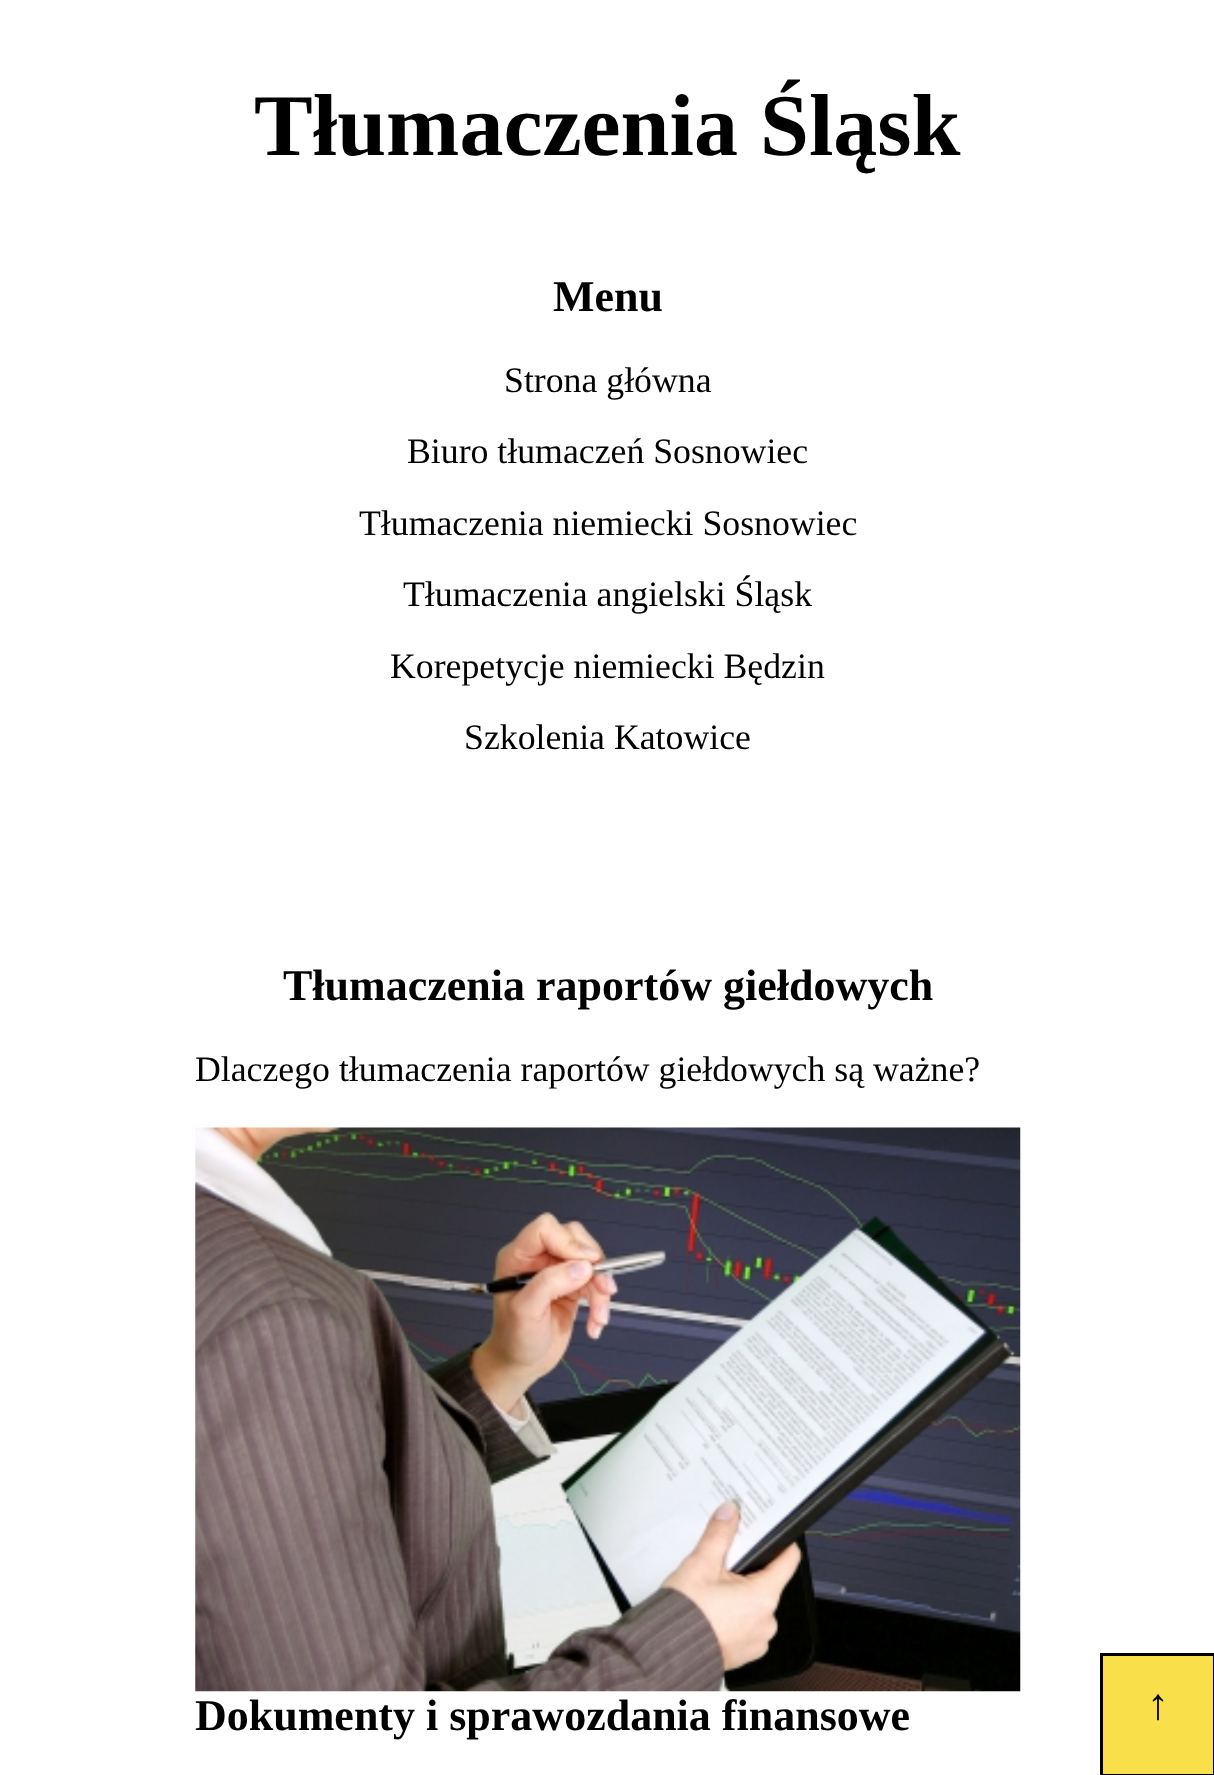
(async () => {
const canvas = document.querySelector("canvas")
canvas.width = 1214
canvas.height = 1775
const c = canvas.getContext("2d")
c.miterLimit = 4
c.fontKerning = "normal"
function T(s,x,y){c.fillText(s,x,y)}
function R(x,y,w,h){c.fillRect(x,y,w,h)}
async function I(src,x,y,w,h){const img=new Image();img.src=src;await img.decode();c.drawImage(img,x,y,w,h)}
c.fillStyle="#fff"
R(0,0,1214,1775)
c.font="bold 88px Liberation Serif"
c.fillStyle="#000"
T("Tłumaczenia Śląsk",254,155)
c.font="bold 44px Liberation Serif"
T("Menu",553,311)
c.font="35.75px Liberation Serif"
T("Strona główna",504,392)
T("Biuro tłumaczeń Sosnowiec",407,463)
T("Tłumaczenia niemiecki Sosnowiec",359,535)
T("Tłumaczenia angielski Śląsk",403,606)
T("Korepetycje niemiecki Będzin",390,678)
T("Szkolenia Katowice",464,749)
c.font="bold 44px Liberation Serif"
T("Tłumaczenia raportów giełdowych",283,1000)
c.font="35.75px Liberation Serif"
T("Dlaczego tłumaczenia raportów giełdowych są ważne?",195,1081)
await I("1.png",195,1127,826,565)
c.font="bold 44px Liberation Serif"
T("Dokumenty i sprawozdania finansowe",195,1730)
c.fillStyle="#f9e04b"
c.beginPath()
c.rect(1101.5,1654.5,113,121)
c.fill()
c.strokeStyle="#000"
c.lineWidth=3
c.stroke()
c.fillStyle="#000"
T("↑",1147,1719)
})()
